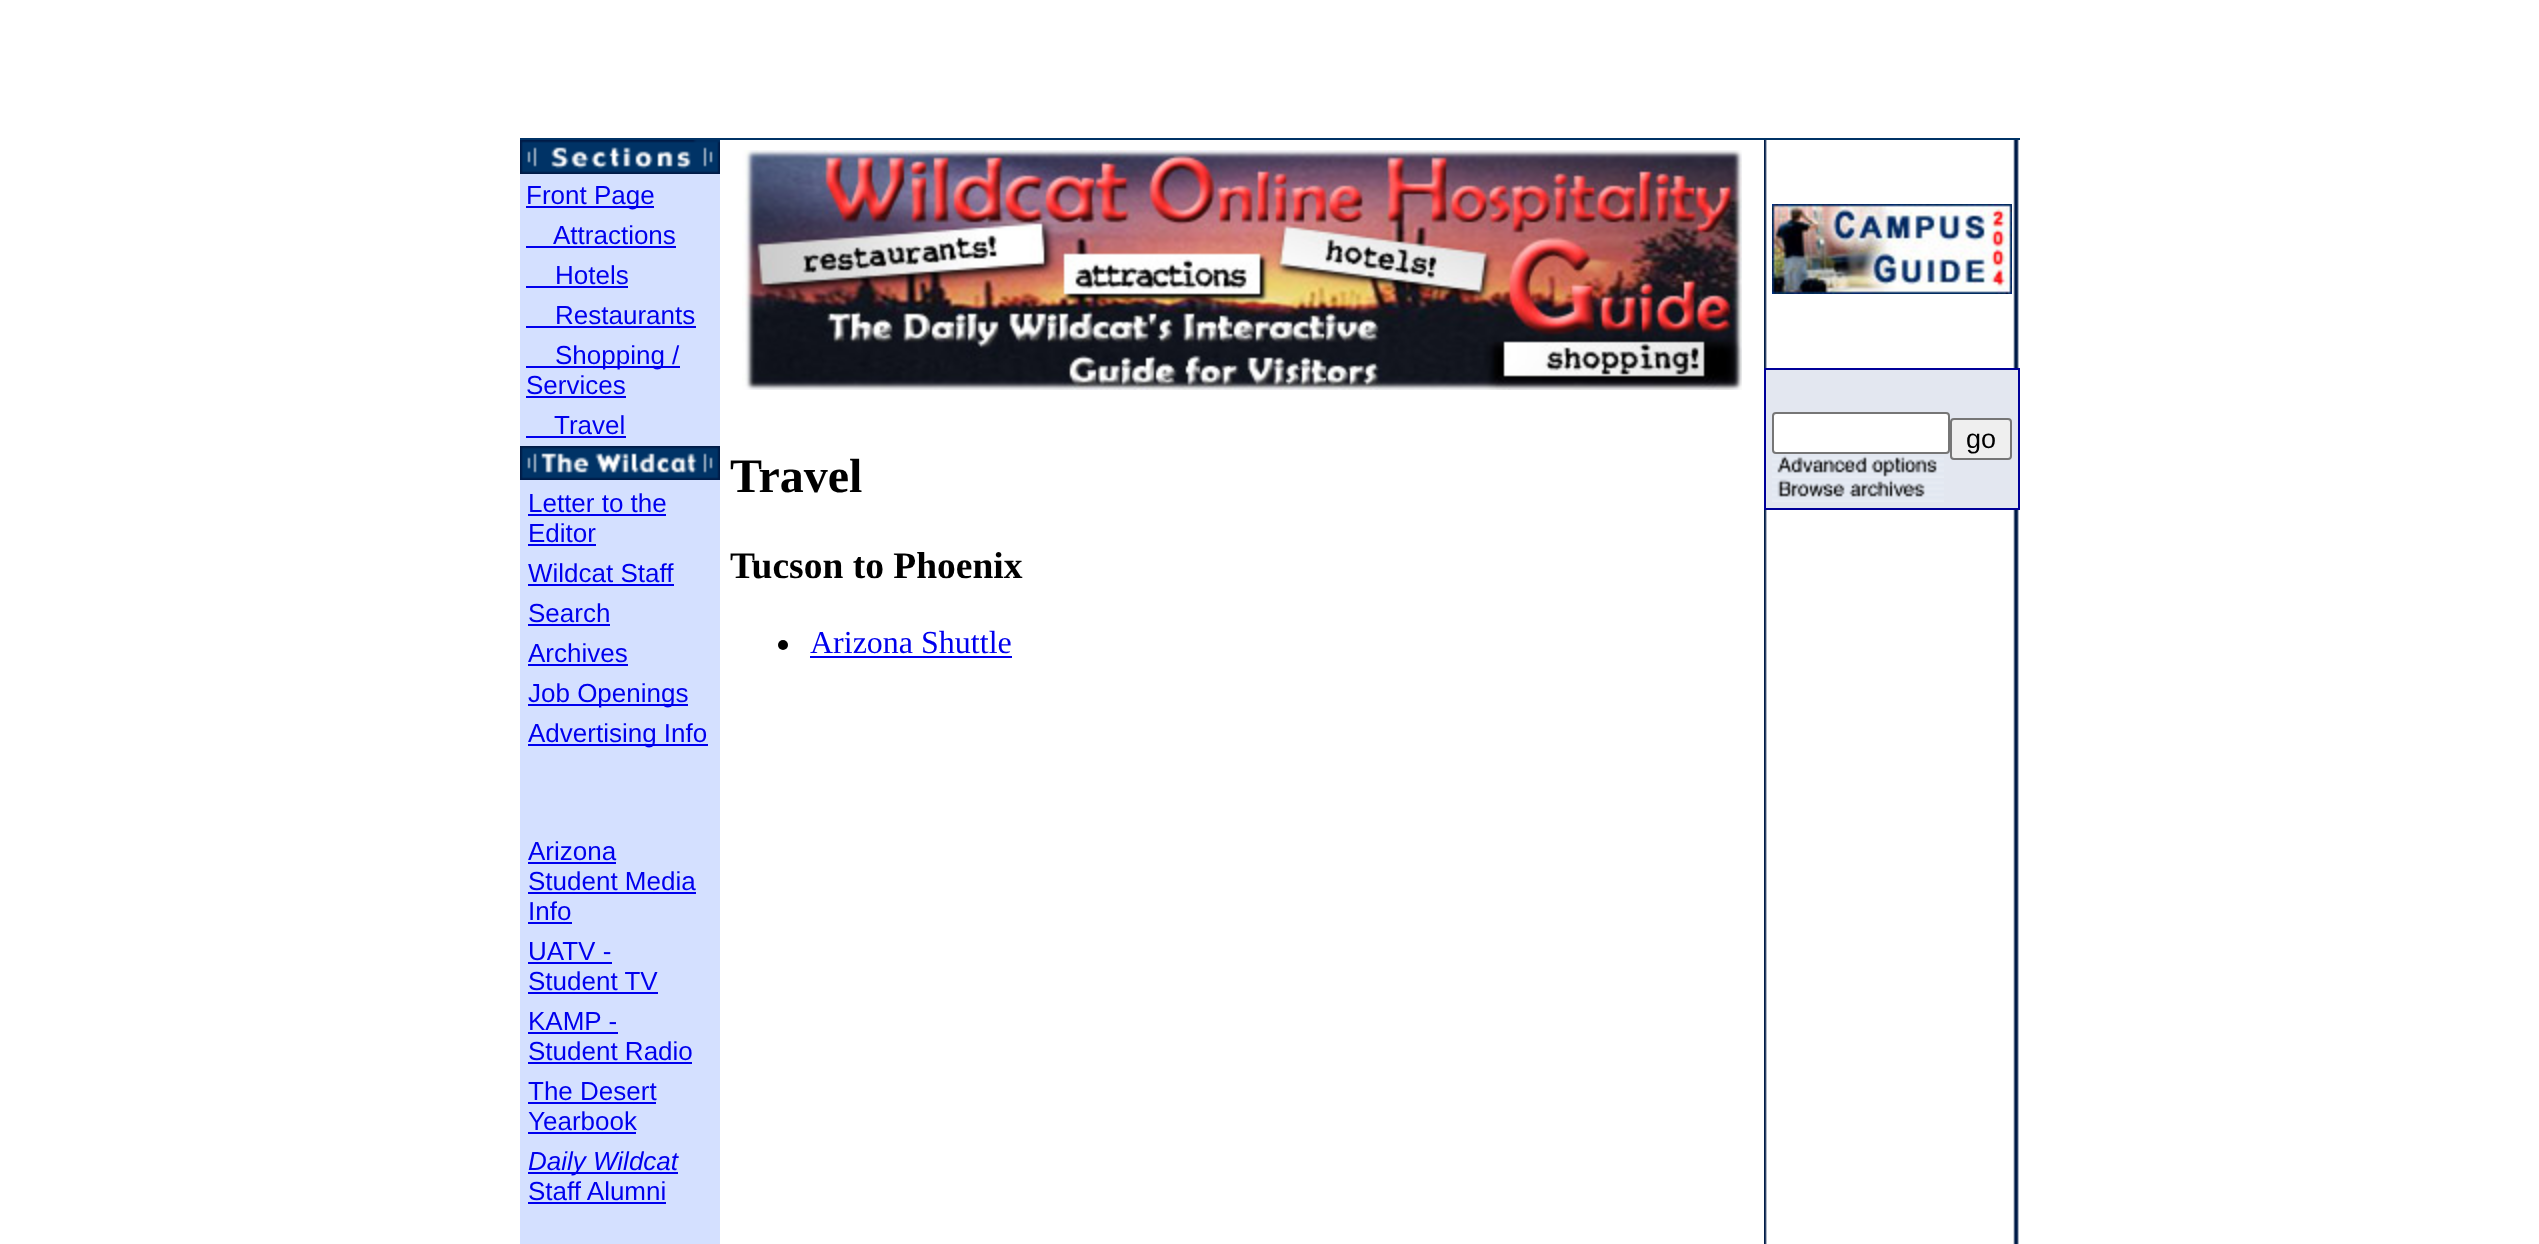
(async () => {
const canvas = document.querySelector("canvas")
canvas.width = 2539
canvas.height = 1244
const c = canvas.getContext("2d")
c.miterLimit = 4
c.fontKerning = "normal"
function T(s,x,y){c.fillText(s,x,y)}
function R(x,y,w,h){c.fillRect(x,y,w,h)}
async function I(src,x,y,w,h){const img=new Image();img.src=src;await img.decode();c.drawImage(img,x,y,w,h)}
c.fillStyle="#fff"
R(0,0,2539,1244)
c.fillStyle="#036"
R(520,138,1500,2)
c.fillStyle="#d4e0ff"
R(520,174,200,1070)
await I("1.png",520,140,200,34)
c.fillStyle="#00e"
R(526,206,128,2)
c.font="26px Liberation Sans"
T("Front Page",526,204)
T("Attractions",553,244)
R(526,246,150,2)
T("Hotels",555,284)
R(526,286,102,2)
T("Restaurants",555,324)
R(526,326,170,2)
R(526,366,154,2)
T("Shopping /",555,364)
T("Services",526,394)
R(526,396,100,2)
T("Travel",554,434)
R(526,436,100,2)
await I("2.png",520,446,200,34)
T("Letter to the",528,512)
R(528,514,138,2)
T("Editor",528,542)
R(528,544,68,2)
T("Wildcat Staff",528,582)
R(528,584,146,2)
T("Search",528,622)
R(528,624,82,2)
T("Archives",528,662)
R(528,664,100,2)
R(528,704,160,2)
T("Job Openings",528,702)
R(528,744,180,2)
T("Advertising Info",528,742)
T("Arizona",528,860)
R(528,862,88,2)
T("Student Media",528,890)
R(528,892,168,2)
T("Info",528,920)
R(528,922,44,2)
T("UATV -",528,960)
R(528,962,84,2)
T("Student TV",528,990)
R(528,992,130,2)
T("KAMP -",528,1030)
R(528,1032,90,2)
T("Student Radio",528,1060)
R(528,1062,164,2)
T("The Desert",528,1100)
R(528,1102,128,2)
T("Yearbook",528,1130)
R(528,1132,108,2)
R(528,1172,150,2)
c.font="italic 26px Liberation Sans"
T("Daily Wildcat",528,1170)
c.font="26px Liberation Sans"
T("Staff Alumni",528,1200)
R(528,1202,138,2)
await I("3.png",1764,140,255,1104)
await I("4.png",1772,204,240,90)
c.fillStyle="#009"
R(1764,368,256,142)
c.fillStyle="#e3e7f0"
R(1766,370,252,138)
c.fillStyle="#fff"
c.beginPath()
c.roundRect(1773,413,176,40,3)
c.fill()
c.strokeStyle="#767676"
c.lineWidth=2
c.stroke()
c.fillStyle="#efefef"
c.beginPath()
c.roundRect(1951,419,60,40,3)
c.fill()
c.stroke()
c.font="27px Liberation Sans"
c.fillStyle="#000"
T("go",1966,448)
await I("5.png",1772,455,172,23)
await I("6.png",1772,479,172,23)
await I("7.png",742,150,1000,240)
c.font="bold 48px Liberation Serif"
T("Travel",730,492)
c.font="bold 37.5px Liberation Serif"
T("Tucson to Phoenix",730,578)
c.beginPath()
c.arc(783,645,5,0,7)
c.fill()
c.font="32px Liberation Serif"
c.fillStyle="#00e"
T("Arizona Shuttle",810,653)
R(810,656,202,2)
})()
